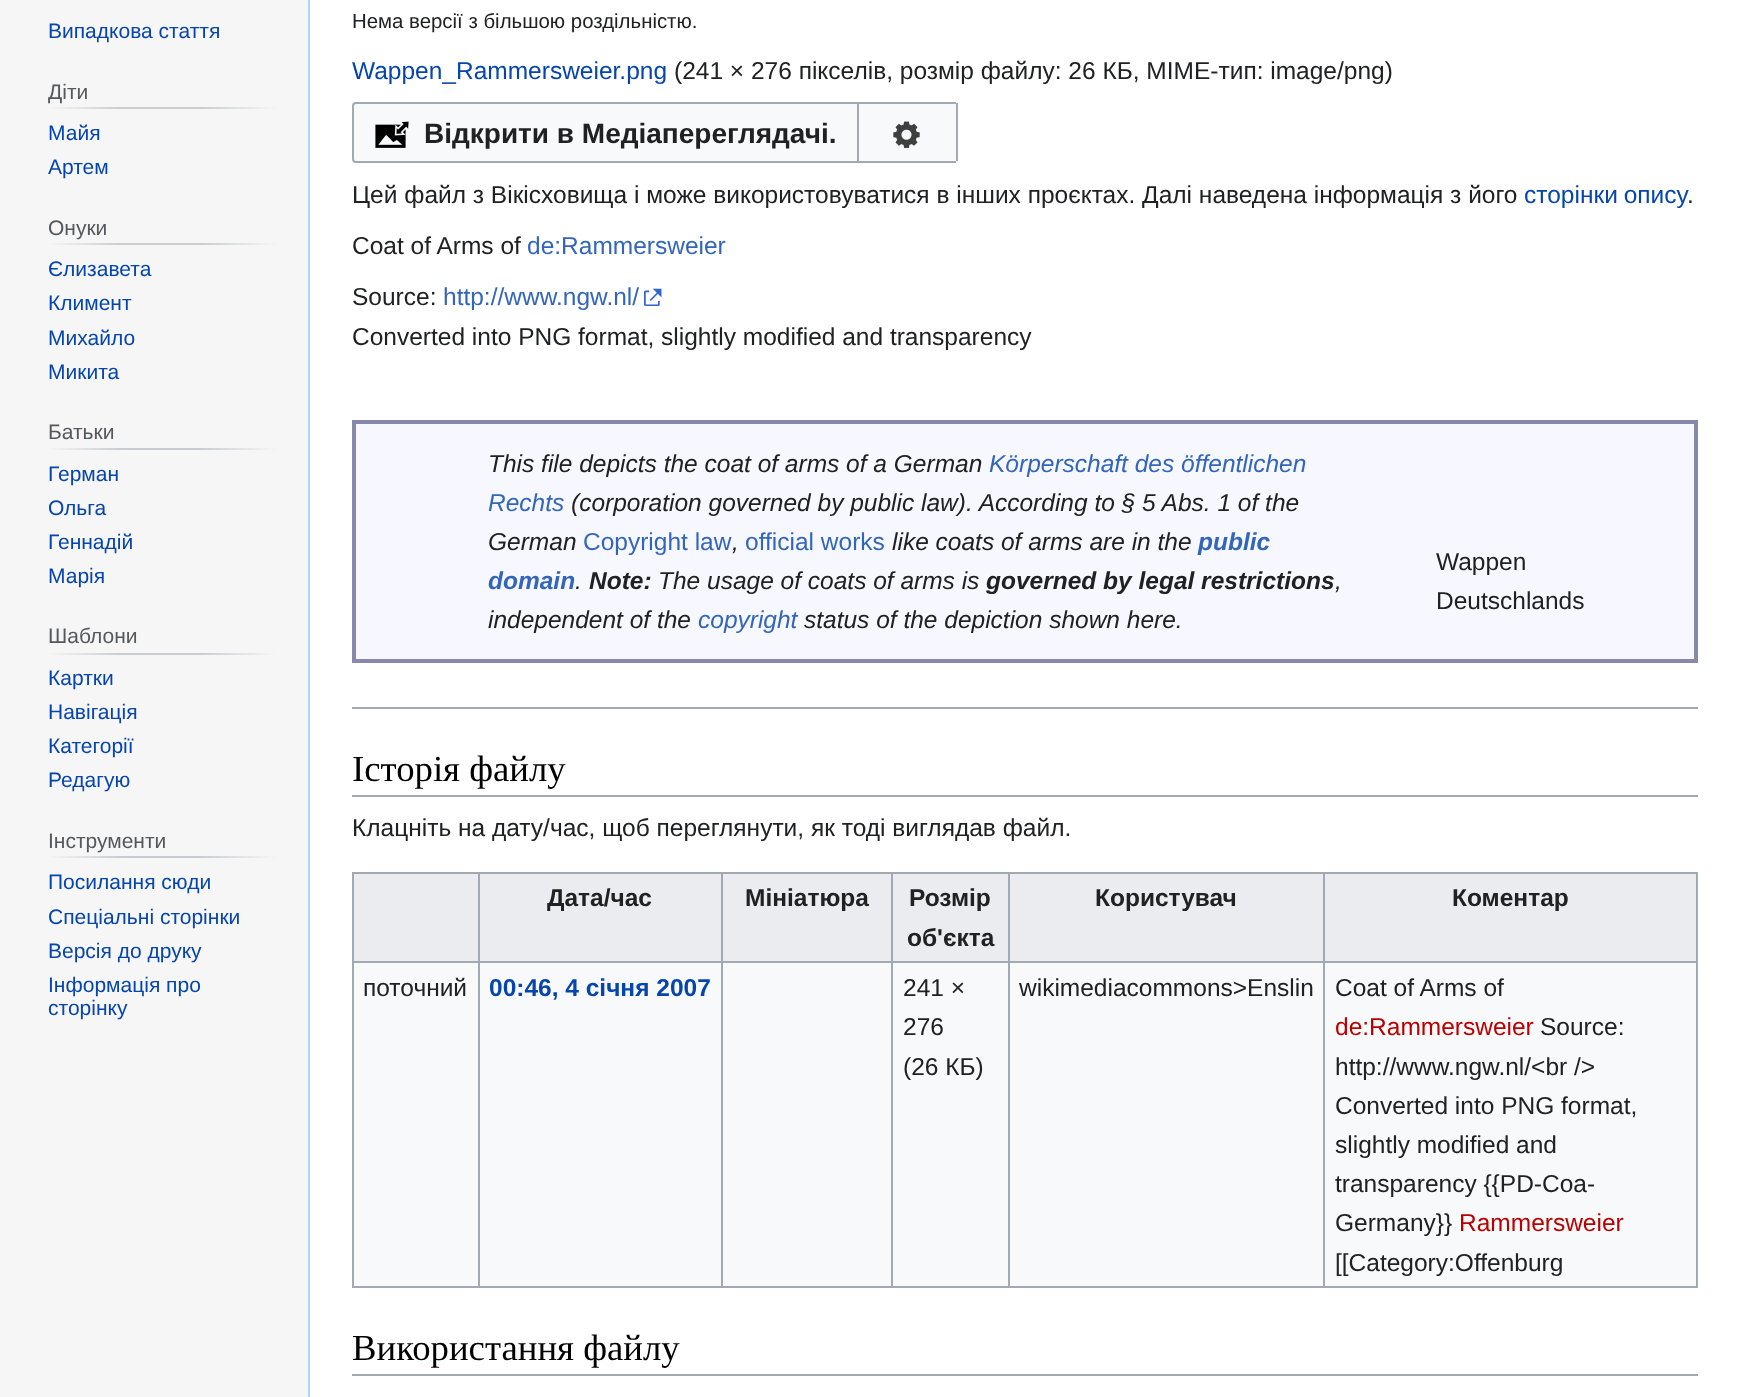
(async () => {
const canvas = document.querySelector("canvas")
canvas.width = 1738
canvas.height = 1397
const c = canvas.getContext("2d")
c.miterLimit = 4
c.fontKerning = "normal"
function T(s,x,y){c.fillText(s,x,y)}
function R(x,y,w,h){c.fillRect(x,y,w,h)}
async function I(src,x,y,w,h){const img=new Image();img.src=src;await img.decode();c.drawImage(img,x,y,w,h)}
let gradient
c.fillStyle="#f6f6f6"
R(0,0,1738,1397)
c.font="21px Liberation Sans"
c.fillStyle="#0645ad"
T("Випадкова стаття",48,38)
gradient = c.createLinearGradient(47,108,277,108)
gradient.addColorStop(0,"#f6f6f6")
gradient.addColorStop(.33,"#c8ccd1")
gradient.addColorStop(.66,"#c8ccd1")
gradient.addColorStop(1,"#f6f6f6")
c.fillStyle = gradient
R(47,107,230,2)
c.fillStyle="#54595d"
T("Діти",48,99)
c.fillStyle="#0645ad"
T("Майя",48,140)
T("Артем",48,174)
gradient = c.createLinearGradient(47,244,277,244)
gradient.addColorStop(0,"#f6f6f6")
gradient.addColorStop(.33,"#c8ccd1")
gradient.addColorStop(.66,"#c8ccd1")
gradient.addColorStop(1,"#f6f6f6")
c.fillStyle = gradient
R(47,243,230,2)
c.fillStyle="#54595d"
T("Онуки",48,235)
c.fillStyle="#0645ad"
T("Єлизавета",48,276)
T("Климент",48,310)
T("Михайло",48,345)
T("Микита",48,379)
gradient = c.createLinearGradient(47,449,277,449)
gradient.addColorStop(0,"#f6f6f6")
gradient.addColorStop(.33,"#c8ccd1")
gradient.addColorStop(.66,"#c8ccd1")
gradient.addColorStop(1,"#f6f6f6")
c.fillStyle = gradient
R(47,448,230,2)
c.fillStyle="#54595d"
T("Батьки",48,439)
c.fillStyle="#0645ad"
T("Герман",48,481)
T("Ольга",48,515)
T("Геннадій",48,549)
T("Марія",48,583)
gradient = c.createLinearGradient(47,654,277,654)
gradient.addColorStop(0,"#f6f6f6")
gradient.addColorStop(.33,"#c8ccd1")
gradient.addColorStop(.66,"#c8ccd1")
gradient.addColorStop(1,"#f6f6f6")
c.fillStyle = gradient
R(47,653,230,2)
c.fillStyle="#54595d"
T("Шаблони",48,643)
c.fillStyle="#0645ad"
T("Картки",48,685)
T("Навігація",48,719)
T("Категорії",48,753)
T("Редагую",48,787)
gradient = c.createLinearGradient(47,857,277,857)
gradient.addColorStop(0,"#f6f6f6")
gradient.addColorStop(.33,"#c8ccd1")
gradient.addColorStop(.66,"#c8ccd1")
gradient.addColorStop(1,"#f6f6f6")
c.fillStyle = gradient
R(47,856,230,2)
c.fillStyle="#54595d"
T("Інструменти",48,848)
c.fillStyle="#0645ad"
T("Посилання сюди",48,889)
T("Спеціальні сторінки",48,924)
T("Версія до друку",48,958)
T("Інформація про",48,992)
T("сторінку",48,1015)
c.fillStyle="#fff"
R(310,0,1428,1397)
c.fillStyle="#a7d7f9"
R(308,0,2,1397)
c.font="20.4px Liberation Sans"
c.fillStyle="#202122"
T("Нема версії з більшою роздільністю.",352,28)
c.font="24.5px Liberation Sans"
c.fillStyle="#0645ad"
T("Wappen_Rammersweier.png",352,79)
c.fillStyle="#202122"
T("(241 × 276 пікселів, розмір файлу: 26 КБ, MIME-тип: image/png)",674,79)
c.fillStyle="#f8f9fa"
c.beginPath()
c.roundRect(353,103,505,59,[3,0,0,3])
c.fill()
c.strokeStyle="#a2a9b1"
c.lineWidth=2
c.stroke()
await I("1.png",375,121,34,27)
c.font="bold 28px Liberation Sans"
c.fillStyle="#202122"
T("Відкрити в Медіапереглядачі.",424,143)
c.fillStyle="#f8f9fa"
c.beginPath()
c.roundRect(859,102,98,61,[0,4,4,0])
c.fill()
c.fillStyle="#a2a9b1"
R(859,102,97,2)
R(956,103,2,58)
R(859,161,97,2)
await I("2.png",893,121,27,27)
c.font="24.5px Liberation Sans"
c.fillStyle="#202122"
T("Цей файл з Вікісховища і може використовуватися в інших проєктах. Далі наведена інформація з його",352,203)
c.wordSpacing="-1px"
c.fillStyle="#0645ad"
T("сторінки опису",1524,203)
c.wordSpacing="0px"
c.fillStyle="#202122"
T(".",1687,203)
T("Coat of Arms of",352,254)
c.fillStyle="#36b"
T("de:Rammersweier",527,254)
c.fillStyle="#202122"
T("Source:",352,305)
c.fillStyle="#36b"
T("http://www.ngw.nl/",443,305)
await I("3.png",644,288,18,18)
c.fillStyle="#202122"
T("Converted into PNG format, slightly modified and transparency",352,345)
c.fillStyle="#f7f8ff"
c.beginPath()
c.rect(354,422,1342,239)
c.fill()
c.strokeStyle="#88a"
c.lineWidth=4
c.stroke()
c.font="italic 24.5px Liberation Sans"
c.fillStyle="#202122"
T("This file depicts the coat of arms of a German",488,472)
c.fillStyle="#36b"
T("Körperschaft des öffentlichen",989,472)
T("Rechts",488,511)
c.fillStyle="#202122"
T("(corporation governed by public law). According to § 5 Abs. 1 of the",571,511)
T("German",488,550)
c.font="24.5px Liberation Sans"
c.fillStyle="#36b"
T("Copyright law",583,550)
c.font="italic 24.5px Liberation Sans"
c.fillStyle="#202122"
T(",",732,550)
c.font="24.5px Liberation Sans"
c.fillStyle="#36b"
T("official works",745,550)
c.font="italic 24.5px Liberation Sans"
c.fillStyle="#202122"
T("like coats of arms are in the",892,550)
c.font="italic bold 24.5px Liberation Sans"
c.fillStyle="#36b"
T("public",1198,550)
T("domain",488,589)
c.font="italic 24.5px Liberation Sans"
c.fillStyle="#202122"
T(".",575,589)
c.font="italic bold 24.5px Liberation Sans"
T("Note:",589,589)
c.font="italic 24.5px Liberation Sans"
T("The usage of coats of arms is",658,589)
c.font="italic bold 24.5px Liberation Sans"
T("governed by legal restrictions",986,589)
c.font="italic 24.5px Liberation Sans"
T(",",1335,589)
T("independent of the",488,628)
c.fillStyle="#36b"
T("copyright",698,628)
c.fillStyle="#202122"
T("status of the depiction shown here.",804,628)
c.font="24.5px Liberation Sans"
T("Wappen",1436,570)
T("Deutschlands",1436,609)
c.fillStyle="#a2a9b1"
R(352,707,1346,2)
R(352,795,1346,2)
c.font="36.75px Liberation Serif"
c.fillStyle="#000"
T("Історія файлу",352,781)
c.font="24.5px Liberation Sans"
c.fillStyle="#202122"
T("Клацніть на дату/час, щоб переглянути, як тоді виглядав файл.",352,836)
c.fillStyle="#f8f9fa"
R(354,963,1342,323)
c.fillStyle="#a2a9b1"
R(352,872,1346,2)
R(1696,872,2,416)
R(352,1286,1346,2)
R(352,872,2,416)
c.fillStyle="#eaecf0"
R(354,874,124,87)
R(480,874,241,87)
c.fillStyle="#a2a9b1"
R(1323,961,375,2)
R(1323,961,2,327)
R(1008,961,317,2)
R(1008,961,2,327)
R(891,961,119,2)
R(891,961,2,327)
R(721,961,172,2)
R(721,961,2,327)
R(478,961,245,2)
R(478,961,2,327)
R(352,961,128,2)
R(478,872,2,91)
c.font="bold 24.5px Liberation Sans"
c.fillStyle="#202122"
T("Дата/час",547,906)
c.fillStyle="#eaecf0"
R(723,874,168,87)
c.fillStyle="#a2a9b1"
R(721,872,2,91)
c.fillStyle="#202122"
T("Мініатюра",745,906)
c.fillStyle="#eaecf0"
R(893,874,115,87)
c.fillStyle="#a2a9b1"
R(891,872,2,91)
c.fillStyle="#202122"
T("Розмір",909,906)
T("об'єкта",907,946)
c.fillStyle="#eaecf0"
R(1010,874,313,87)
c.fillStyle="#a2a9b1"
R(1008,872,2,91)
c.fillStyle="#202122"
T("Користувач",1095,906)
c.fillStyle="#eaecf0"
R(1325,874,371,87)
c.fillStyle="#a2a9b1"
R(1323,872,2,91)
c.fillStyle="#202122"
T("Коментар",1452,906)
c.font="24.5px Liberation Sans"
T("поточний",363,996)
c.font="bold 24.5px Liberation Sans"
c.fillStyle="#0645ad"
T("00:46, 4 січня 2007",489,996)
c.font="24.5px Liberation Sans"
c.fillStyle="#202122"
T("241 ×",903,996)
T("276",903,1035)
T("(26 КБ)",903,1075)
T("wikimediacommons>Enslin",1019,996)
T("Coat of Arms of",1335,996)
c.fillStyle="#ba0000"
T("de:Rammersweier",1335,1035)
c.fillStyle="#202122"
T("Source:",1540,1035)
T("http://www.ngw.nl/<br />",1335,1075)
T("Converted into PNG format,",1335,1114)
T("slightly modified and",1335,1153)
T("transparency {{PD-Coa-",1335,1192)
T("Germany}}",1335,1231)
c.fillStyle="#ba0000"
T("Rammersweier",1459,1231)
c.fillStyle="#202122"
T("[[Category:Offenburg",1335,1271)
c.fillStyle="#a2a9b1"
R(352,1374,1346,2)
c.font="36.75px Liberation Serif"
c.fillStyle="#000"
T("Використання файлу",352,1360)
})()
